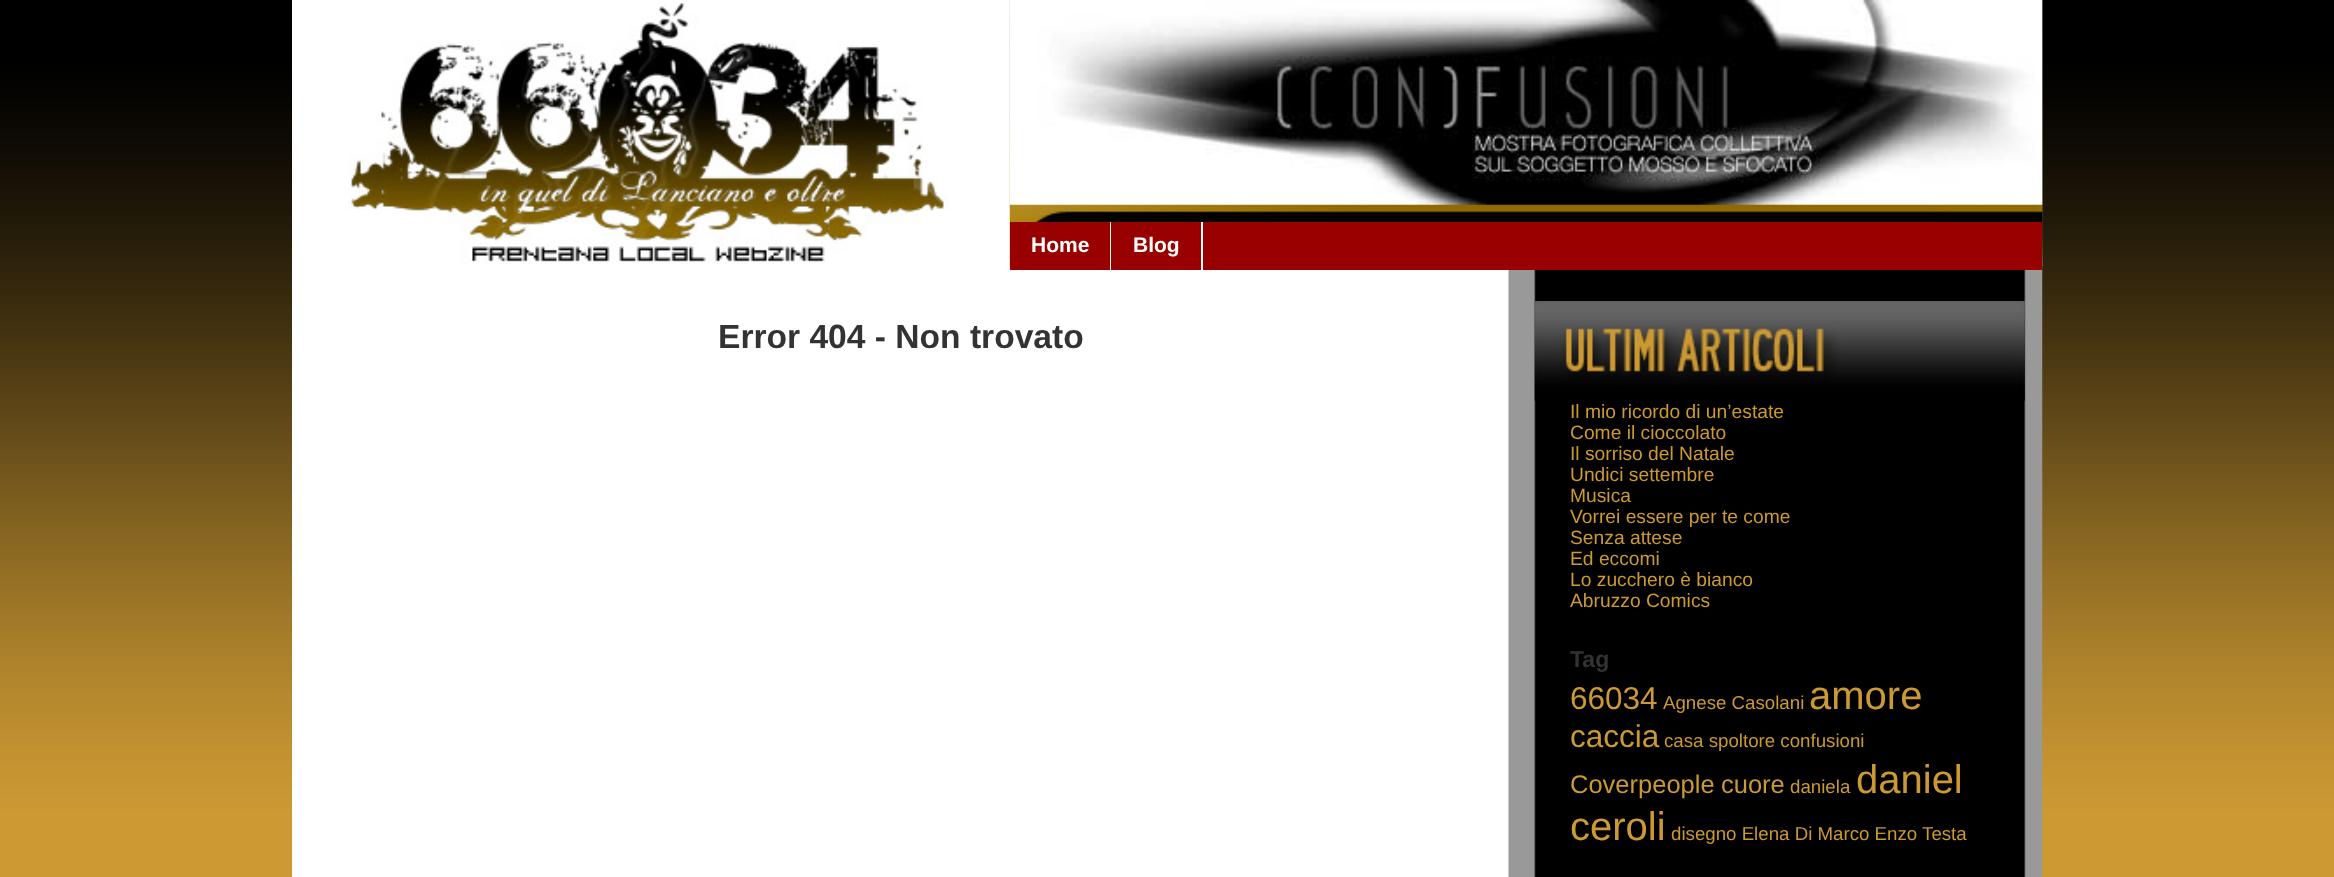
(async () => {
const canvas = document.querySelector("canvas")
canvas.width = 2334
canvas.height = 877
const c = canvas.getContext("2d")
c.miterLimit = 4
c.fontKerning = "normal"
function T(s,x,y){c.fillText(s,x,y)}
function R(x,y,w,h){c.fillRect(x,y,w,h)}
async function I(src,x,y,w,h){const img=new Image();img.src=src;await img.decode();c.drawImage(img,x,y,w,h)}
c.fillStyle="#fff"
R(0,0,2334,877)
await I("1.png",0,0,2334,877)
R(292,0,1217,877)
await I("2.png",1508,0,535,877)
await I("3.png",348,3,602,261)
await I("4.png",1009,0,1034,266)
await I("5.png",1009,0,1034,205)
c.fillStyle="#900"
R(1010,222,1032,48)
c.fillStyle="#fff"
R(1110,222,1,48)
c.font="bold 21px Liberation Sans"
T("Home",1031,252)
R(1201,222,2,48)
T("Blog",1133,252)
c.font="bold 33.6px Liberation Sans"
c.fillStyle="#333"
T("Error 404 - Non trovato",718,348)
await I("6.png",1534,301,491,100)
c.font="19.25px Liberation Sans"
c.fillStyle="#c93"
T("Il mio ricordo di un’estate",1570,418)
T("Come il cioccolato",1570,439)
T("Il sorriso del Natale",1570,460)
T("Undici settembre",1570,481)
T("Musica",1570,502)
T("Vorrei essere per te come",1570,523)
T("Senza attese",1570,544)
T("Ed eccomi",1570,565)
T("Lo zucchero è bianco",1570,586)
T("Abruzzo Comics",1570,607)
c.font="bold 23px Liberation Sans"
c.fillStyle="#333"
T("Tag",1570,667)
c.font="31.5px Liberation Sans"
c.fillStyle="#c93"
T("66034",1570,709)
c.font="18.7px Liberation Sans"
T("Agnese Casolani",1663,709)
c.font="40px Liberation Sans"
T("amore",1809,709)
c.font="31.5px Liberation Sans"
T("caccia",1570,747)
c.font="18.7px Liberation Sans"
T("casa spoltore confusioni",1664,747)
c.font="25.5px Liberation Sans"
T("Coverpeople",1570,793)
T("cuore",1721,793)
c.font="18.7px Liberation Sans"
T("daniela",1790,793)
c.font="40px Liberation Sans"
T("daniel",1856,793)
T("ceroli",1570,840)
c.font="18.7px Liberation Sans"
T("disegno Elena Di Marco Enzo Testa",1671,840)
})()
